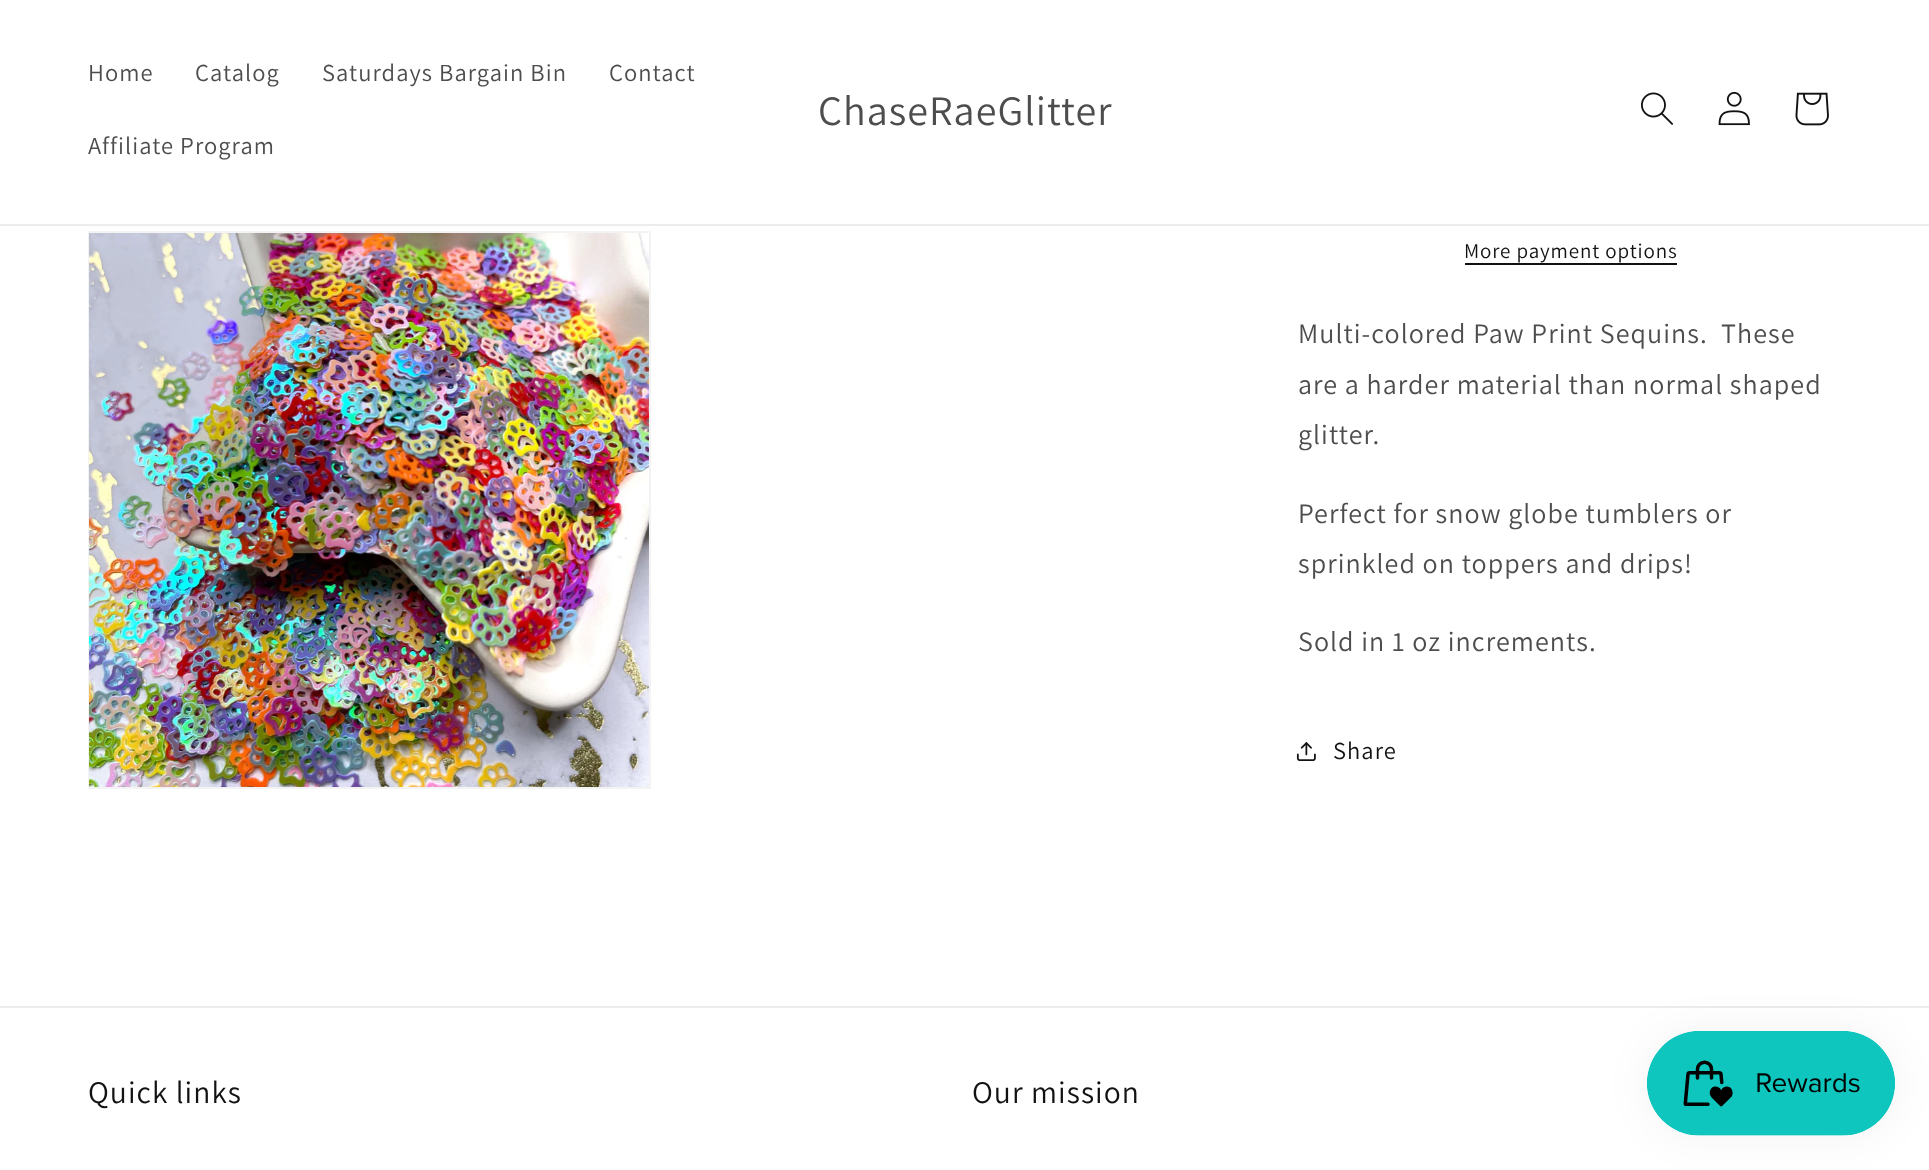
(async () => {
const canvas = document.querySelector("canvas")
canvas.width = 1929
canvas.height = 1170
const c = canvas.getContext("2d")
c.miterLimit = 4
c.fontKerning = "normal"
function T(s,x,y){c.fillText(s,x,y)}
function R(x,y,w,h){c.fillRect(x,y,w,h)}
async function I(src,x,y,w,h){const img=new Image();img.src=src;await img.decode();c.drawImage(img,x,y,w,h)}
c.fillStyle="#fff"
R(0,0,1929,1170)
c.fillStyle="#ececec"
R(0,224,1929,2)
c.letterSpacing="1.05px"
c.font="24.5px Assistant"
c.fillStyle="#4d4d4d"
T("Home",88,81)
T("Catalog",195,81)
T("Saturdays Bargain Bin",322,81)
T("Contact",609,81)
T("Affiliate Program",88,154)
c.font="42px Assistant"
T("ChaseRaeGlitter",818,125)
await I("1.png",1641,92,32,33)
await I("2.png",1718,91,32,35)
await I("3.png",1795,92,34,34)
c.strokeStyle="#f3f3f3"
c.lineWidth=2
c.strokeRect(89,232,561,556)
await I("4.png",89,233,560,554)
c.letterSpacing="0.9px"
c.font="21px Assistant"
c.fillStyle="#121212"
T("More payment options",1464,258)
R(1465,263,212,2)
c.letterSpacing="1.05px"
c.font="28px Assistant"
c.fillStyle="#4d4d4d"
T("Multi-colored Paw Print Sequins.  These",1298,343)
T("are a harder material than normal shaped",1298,394)
T("glitter.",1298,444)
T("Perfect for snow globe tumblers or",1298,523)
T("sprinkled on toppers and drips!",1298,573)
T("Sold in 1 oz increments.",1298,651)
await I("5.png",1296,742,20,19)
c.font="24.5px Assistant"
c.fillStyle="#121212"
T("Share",1333,759)
c.fillStyle="#ececec"
R(0,1006,1929,2)
c.font="31.5px Assistant"
c.fillStyle="#121212"
T("Quick links",88,1103)
T("Our mission",972,1103)
c.fillStyle="#0000000d"
c.filter="blur(22px)"
c.beginPath()
c.roundRect(1647,1031,248,105,52.5)
c.fill()
c.filter="none"
await I("6.png",1647,1031,248,105)
})()
